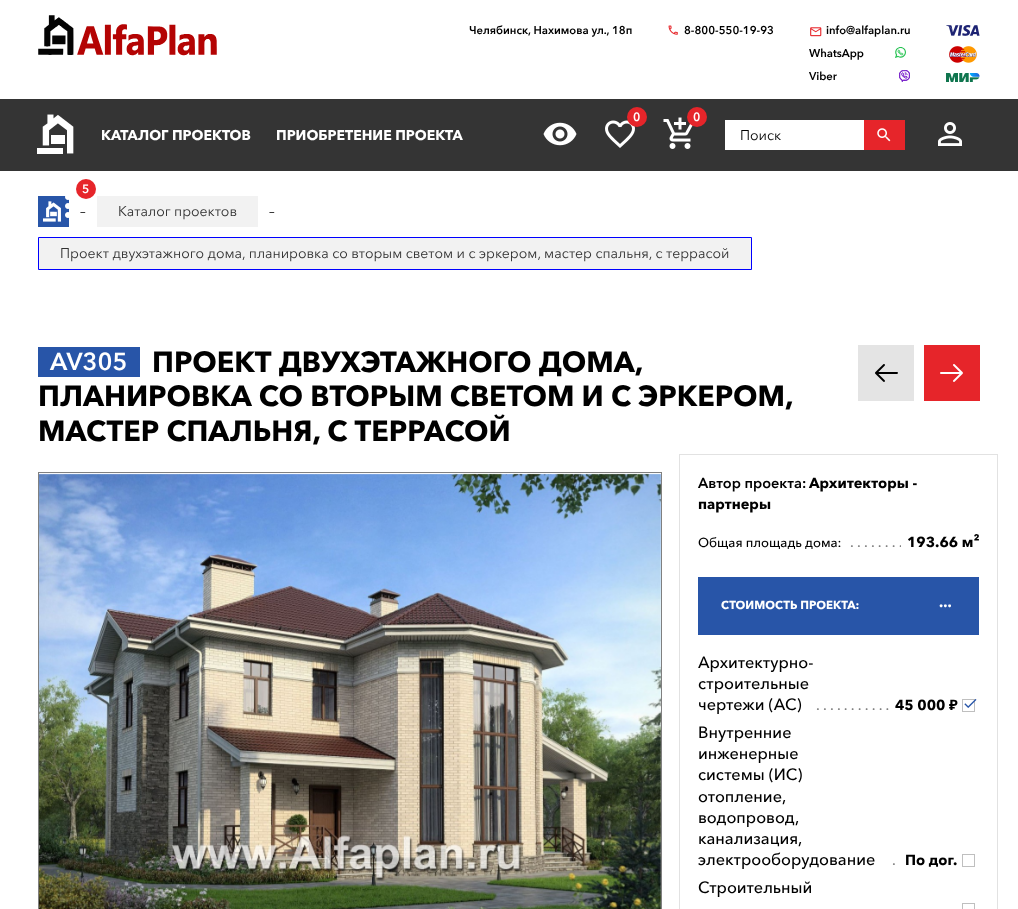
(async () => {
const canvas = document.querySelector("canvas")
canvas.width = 1018
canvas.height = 909
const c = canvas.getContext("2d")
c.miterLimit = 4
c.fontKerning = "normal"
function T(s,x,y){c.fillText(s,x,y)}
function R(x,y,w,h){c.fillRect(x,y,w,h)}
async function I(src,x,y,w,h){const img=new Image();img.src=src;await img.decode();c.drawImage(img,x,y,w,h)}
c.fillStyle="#fff"
R(0,0,1018,909)
await I("1.png",38,15,179,41)
c.font="bold 11.25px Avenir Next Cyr"
c.fillStyle="#000"
T("Челябинск, Нахимова ул., 18п",469,34)
await I("2.png",668,25,10,10)
T("8-800-550-19-93",684,34)
await I("3.png",810,27,12,10)
T("info@alfaplan.ru",826,34)
await I("4.png",895,47,11,11)
T("WhatsApp",809,57)
await I("5.png",899,70,11,12)
T("Viber",809,80)
await I("6.png",946,25,34,11)
await I("7.png",949,46,28,17)
await I("8.png",946,73,34,9)
c.fillStyle="#343434"
R(0,99,1018,72)
await I("9.png",37,114,37,40)
c.font="bold 14px 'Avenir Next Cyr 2'"
c.fillStyle="#fff"
T("КАТАЛОГ ПРОЕКТОВ",101,140)
T("ПРИОБРЕТЕНИЕ ПРОЕКТА",276,140)
c.fillStyle="#2855a8"
R(38,196,31,31)
await I("10.png",65,196,4,22)
c.fillStyle="#e6252a"
c.beginPath()
c.arc(86,189,10,0,7)
c.fill()
c.letterSpacing="-1px"
c.font="bold 12px Avenir Next Cyr"
c.fillStyle="#fff"
T("5",82,193)
await I("11.png",605,120,30,28)
c.fillStyle="#e6252a"
c.beginPath()
c.arc(637,117,10,0,7)
c.fill()
c.fillStyle="#fff"
T("0",633,121)
await I("12.png",663,117,30,32)
c.fillStyle="#e6252a"
c.beginPath()
c.arc(697,117,10,0,7)
c.fill()
c.fillStyle="#fff"
T("0",693,121)
await I("13.png",543,122,34,24)
R(725,120,139,30)
c.letterSpacing="0px"
c.font="14px Avenir Next Cyr"
c.fillStyle="#000"
T("Поиск",740,140)
c.fillStyle="#e6252a"
R(864,120,41,30)
await I("14.png",877,128,14,14)
await I("15.png",938,122,24,24)
await I("16.png",43,201,18,21)
c.fillStyle="#000"
T("–",80,216)
c.fillStyle="#f2f2f2"
R(97,196,161,31)
c.fillStyle="#313131"
T("Каталог проектов",118,216)
c.fillStyle="#000"
T("–",269,216)
c.fillStyle="#f2f2f2"
c.beginPath()
c.rect(38.5,237.5,713,32)
c.fill()
c.strokeStyle="#00f"
c.stroke()
c.fillStyle="#313131"
T("Проект двухэтажного дома, планировка со вторым светом и с эркером, мастер спальня, с террасой",60,258)
c.fillStyle="#2855a8"
R(38,347,102,30)
c.font="bold 24.5px Avenir Next Cyr"
c.fillStyle="#fff"
T("AV305",50,370)
c.font="bold 28.8px 'Avenir Next Cyr 2'"
c.fillStyle="#000"
T("ПРОЕКТ ДВУХЭТАЖНОГО ДОМА,",152,372)
T("ПЛАНИРОВКА СО ВТОРЫМ СВЕТОМ И С ЭРКЕРОМ,",38,406)
T("МАСТЕР СПАЛЬНЯ, С ТЕРРАСОЙ",38,441)
c.fillStyle="#e4e4e4"
R(858,345,56,56)
await I("17.png",875,364,23,18)
c.fillStyle="#e6252a"
R(924,345,56,56)
await I("18.png",940,364,23,18)
c.strokeStyle="#808080"
c.strokeRect(38.5,472.5,623,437)
await I("19.png",39,473,622,436)
c.strokeStyle="#e2e2e2"
c.strokeRect(679.5,454.5,318,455)
c.font="bold 14.5px Avenir Next Cyr"
c.fillStyle="#000"
T("Автор проекта:",698,488)
c.font="bold 14.5px 'Avenir Next Cyr 2'"
T("Aрхитекторы -",809,488)
T("партнеры",698,509)
c.font="500 13px Avenir Next Cyr"
T("Общая площадь дома:",698,547)
c.font="500 14.5px Avenir Next Cyr"
c.fillStyle="#808080"
T(". . . . . . . .",850,547)
c.fillStyle="#fff"
R(901,545,1,2)
c.font="bold 14.5px 'Avenir Next Cyr 2'"
c.fillStyle="#000"
T("193.66 м²",907,547)
c.fillStyle="#2855a8"
R(698,577,281,58)
c.font="bold 11.5px 'Avenir Next Cyr 2'"
c.fillStyle="#fff"
T("СТОИМОСТЬ ПРОЕКТА:",721,609)
c.font="bold 14px 'Avenir Next Cyr 2'"
T("...",939,607)
c.font="500 16.25px Avenir Next Cyr"
c.fillStyle="#000"
T("Архитектурно-",698,668)
T("строительные",698,689)
T("чертежи (АС)",698,710)
c.font="500 14.5px Avenir Next Cyr"
c.fillStyle="#808080"
T(". . . . . . . . . . .",816,710)
c.font="bold 14.5px 'Avenir Next Cyr 2'"
c.fillStyle="#000"
T("45 000",895,710)
c.font="bold 14.5px Noto Sans"
T("₽",949,710)
c.strokeStyle="#bfbfbf"
c.strokeRect(962.5,699.5,12,12)
await I("20.png",964,699,13,9)
c.font="500 16.25px Avenir Next Cyr"
T("Внутренние",698,738)
T("инженерные",698,759)
T("системы (ИС)",698,780)
T("отопление,",698,802)
T("водопровод,",698,823)
T("канализация,",698,844)
T("электрооборудование",698,865)
c.font="500 14.5px Avenir Next Cyr"
c.fillStyle="#808080"
T(".",892,865)
c.font="bold 14.5px 'Avenir Next Cyr 2'"
c.fillStyle="#000"
T("По дог.",905,865)
c.strokeRect(962.5,854.5,12,12)
c.font="500 16.25px Avenir Next Cyr"
T("Строительный",698,893)
c.strokeRect(962.5,903.5,12,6)
})()
